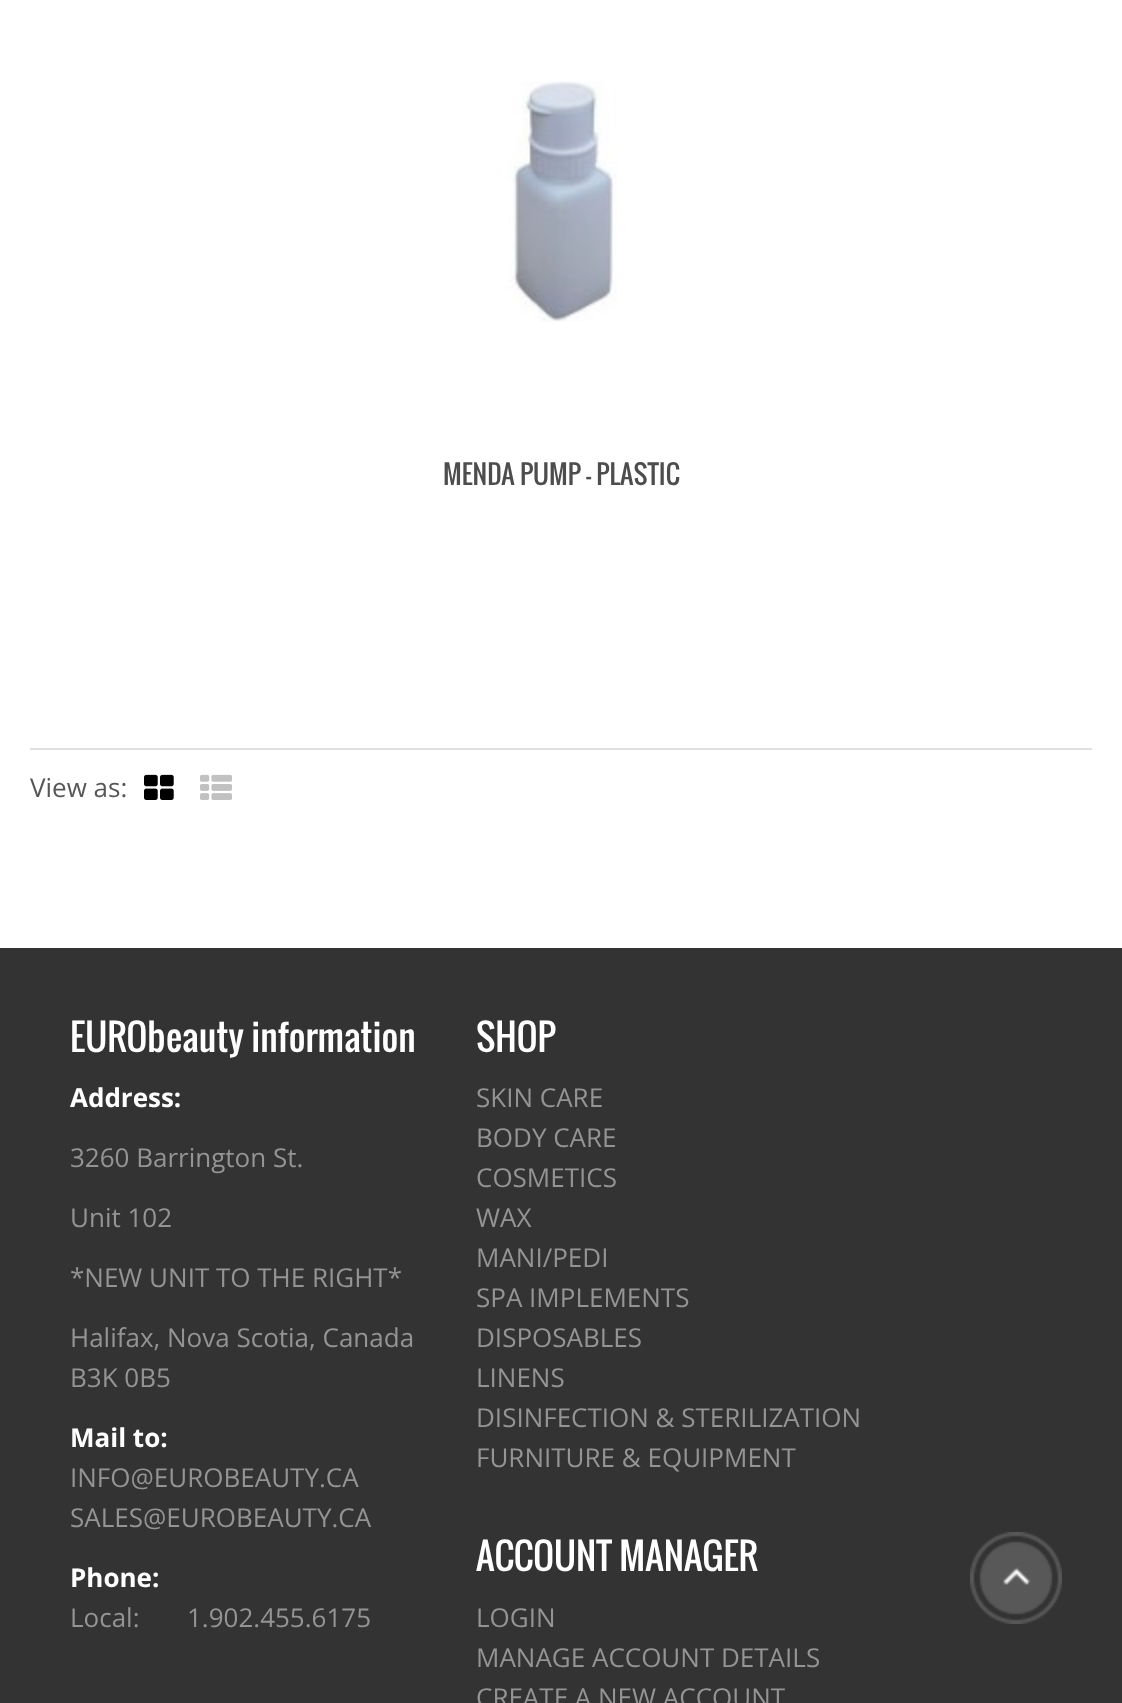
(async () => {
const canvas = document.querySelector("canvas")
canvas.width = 1122
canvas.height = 1703
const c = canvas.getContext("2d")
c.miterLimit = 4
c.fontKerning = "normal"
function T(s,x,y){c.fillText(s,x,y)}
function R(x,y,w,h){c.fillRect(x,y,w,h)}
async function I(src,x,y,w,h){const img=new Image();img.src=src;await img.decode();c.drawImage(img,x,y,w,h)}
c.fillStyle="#fff"
R(0,0,1122,1703)
await I("1.png",508,81,109,241)
c.font="26px Oswald"
c.fillStyle="#4d4d4d"
T("MENDA PUMP - PLASTIC",443,485)
c.fillStyle="#e0e0e0"
R(30,748,1062,2)
c.font="26px Open Sans"
c.fillStyle="#575757"
T("View as:",30,797)
await I("2.png",144,774,30,26)
await I("3.png",200,774,32,26)
c.fillStyle="#333"
R(0,948,1122,755)
c.font="36px Oswald"
c.fillStyle="#fff"
T("EURObeauty information",70,1052)
c.font="bold 26px Open Sans"
T("Address:",70,1107)
c.font="26px Open Sans"
c.fillStyle="#949494"
T("3260 Barrington St.",70,1167)
T("Unit 102",70,1227)
T("*NEW UNIT TO THE RIGHT*",70,1287)
T("Halifax, Nova Scotia, Canada",70,1347)
T("B3K 0B5",70,1387)
c.font="bold 26px Open Sans"
c.fillStyle="#fff"
T("Mail to:",70,1447)
c.font="26px Open Sans"
c.fillStyle="#949494"
T("INFO@EUROBEAUTY.CA",70,1487)
T("SALES@EUROBEAUTY.CA",70,1527)
c.font="bold 26px Open Sans"
c.fillStyle="#fff"
T("Phone:",70,1587)
c.font="26px Open Sans"
c.fillStyle="#949494"
T("Local:",70,1627)
T("1.902.455.6175",187,1627)
c.font="36px Oswald"
c.fillStyle="#fff"
T("SHOP",476,1052)
c.font="26px Open Sans"
c.fillStyle="#949494"
T("SKIN CARE",476,1107)
T("BODY CARE",476,1147)
T("COSMETICS",476,1187)
T("WAX",476,1227)
T("MANI/PEDI",476,1267)
T("SPA IMPLEMENTS",476,1307)
T("DISPOSABLES",476,1347)
T("LINENS",476,1387)
T("DISINFECTION & STERILIZATION",476,1427)
T("FURNITURE & EQUIPMENT",476,1467)
c.font="36px Oswald"
c.fillStyle="#fff"
T("ACCOUNT MANAGER",476,1571)
c.font="26px Open Sans"
c.fillStyle="#949494"
T("LOGIN",476,1627)
T("MANAGE ACCOUNT DETAILS",476,1667)
T("CREATE A NEW ACCOUNT",476,1707)
await I("4.png",970,1532,92,92)
})()
